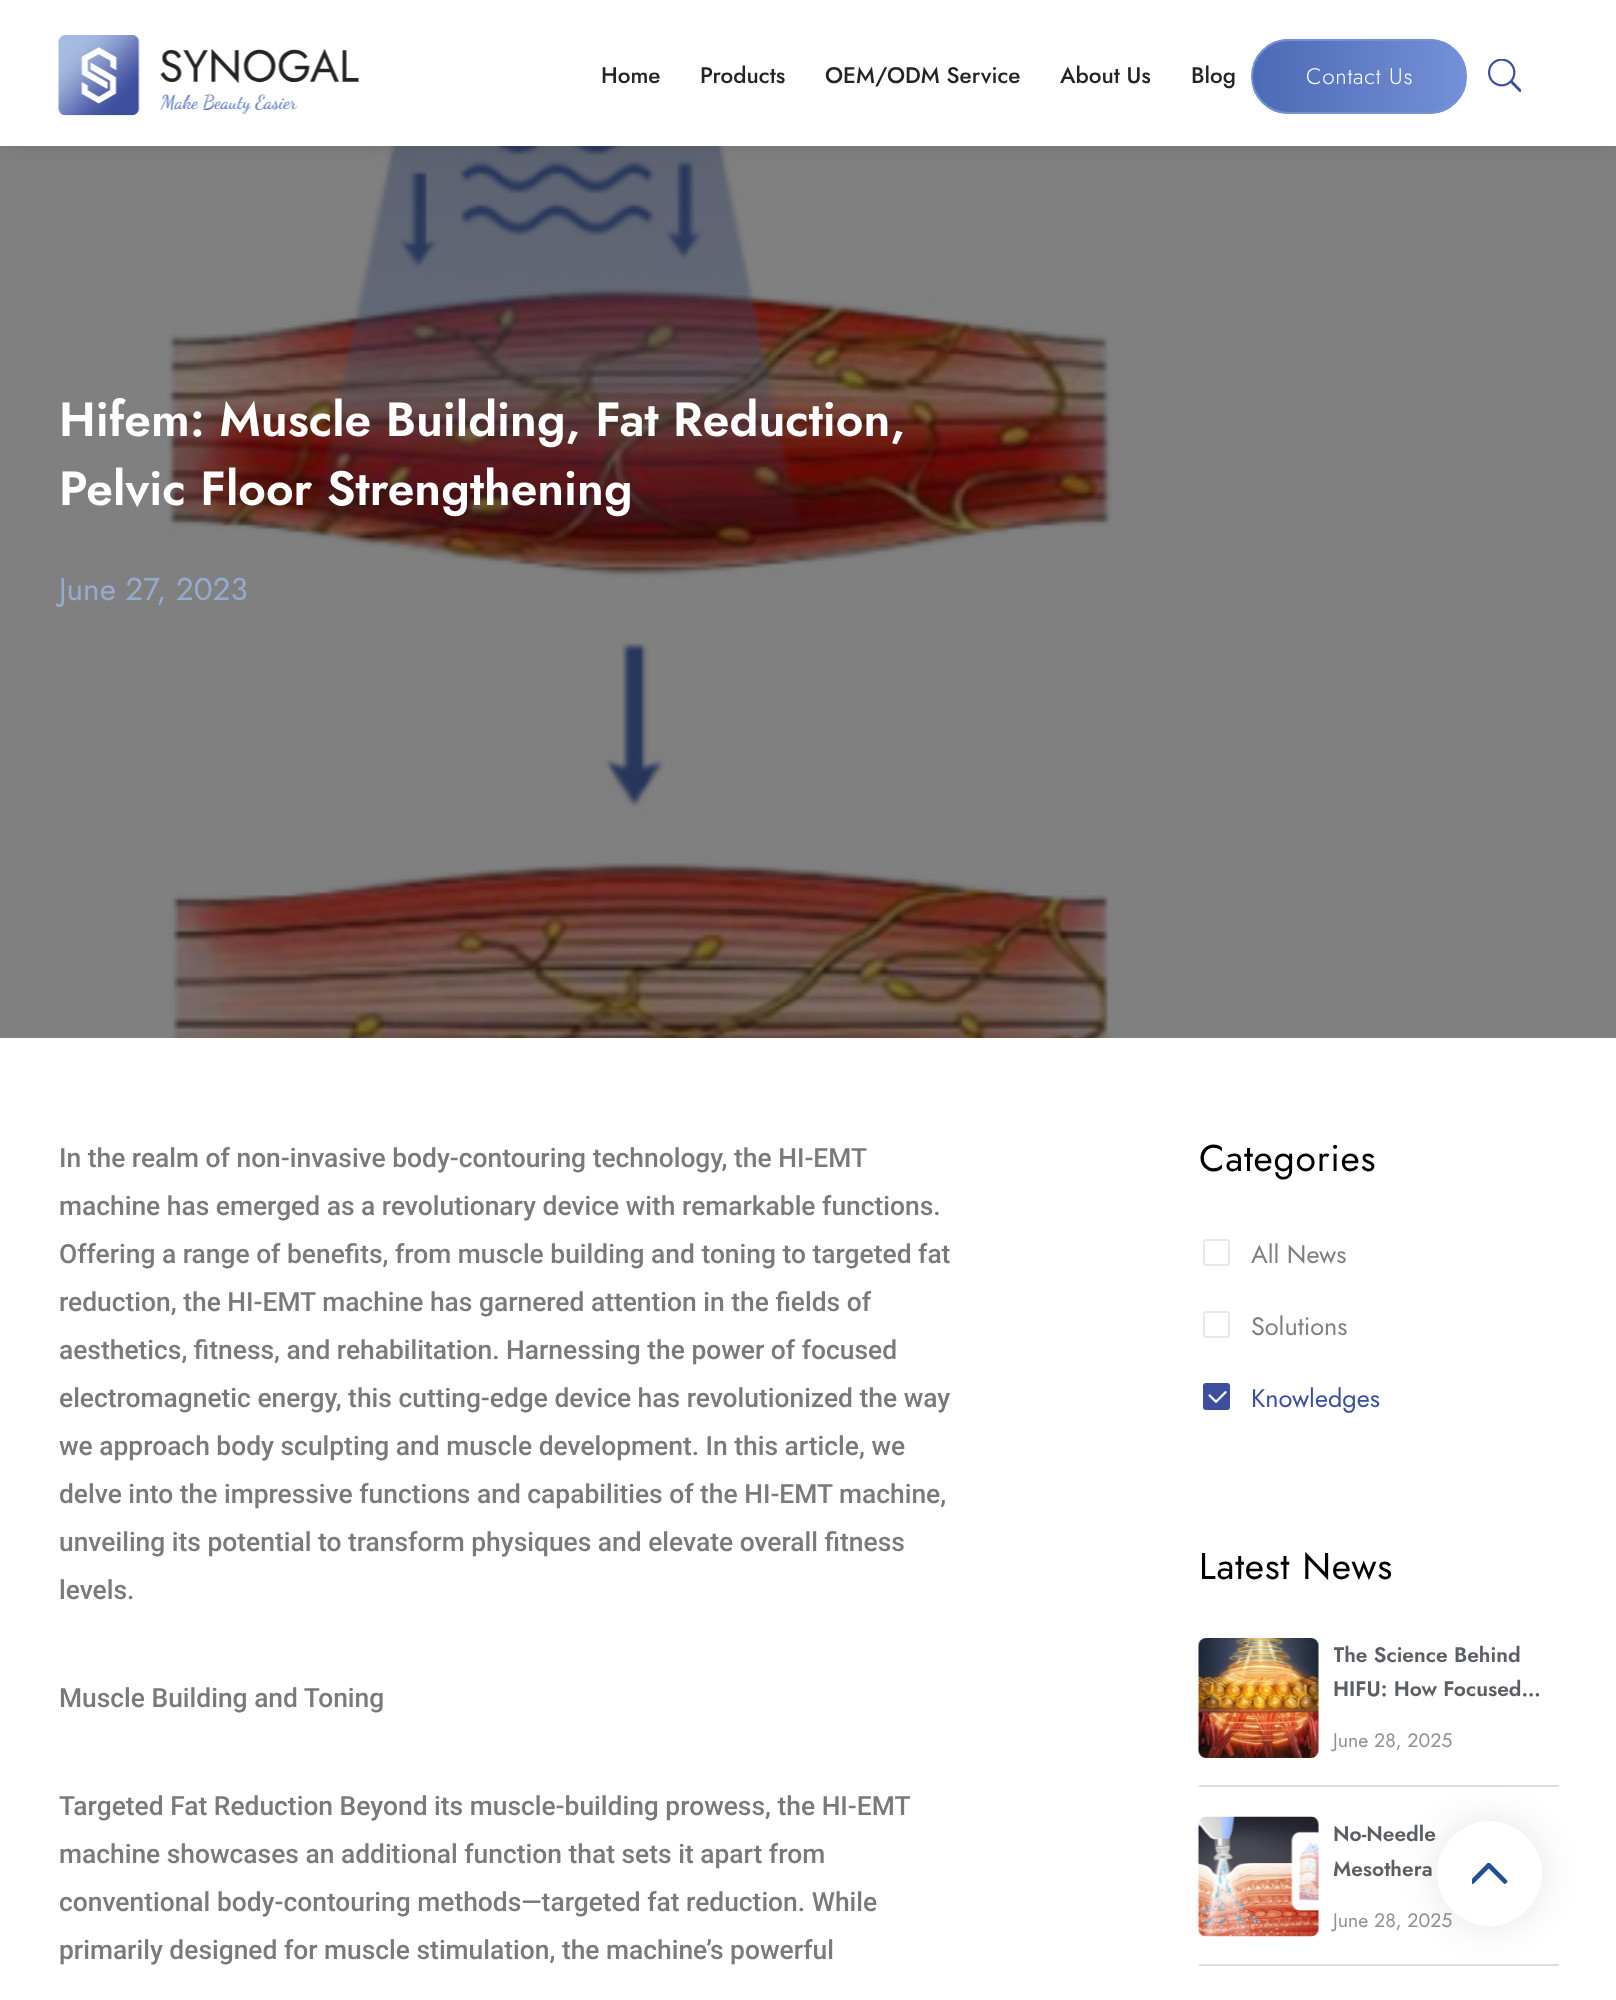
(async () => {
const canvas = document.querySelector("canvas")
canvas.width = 1616
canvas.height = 2000
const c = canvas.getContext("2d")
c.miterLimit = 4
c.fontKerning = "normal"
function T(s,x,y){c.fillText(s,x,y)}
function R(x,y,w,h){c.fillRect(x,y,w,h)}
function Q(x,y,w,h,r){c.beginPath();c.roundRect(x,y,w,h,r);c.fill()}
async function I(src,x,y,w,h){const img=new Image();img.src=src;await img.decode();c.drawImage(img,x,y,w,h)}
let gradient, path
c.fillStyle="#fff"
R(0,0,1616,2000)
c.fillStyle="#808080"
R(0,146,1616,892)
await I("3.png",167,146,945,892)
c.fillStyle="#0000001a"
c.filter="blur(11px)"
c.beginPath()
c.rect(0,0,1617,146)
c.fill()
c.filter="none"
c.fillStyle="#fff"
R(0,0,1616,146)
await I("1.png",58,35,301,81)
c.font="500 22.5px Jost"
c.fillStyle="#242424"
T("Home",601,83)
T("Products",700,83)
T("OEM/ODM Service",825,83)
T("About Us",1060,83)
T("Blog",1191,83)
c.save()
c.beginPath()
c.roundRect(1251,39,216,75,37.5)
c.clip()
gradient = c.createLinearGradient(1253,77,1466,76)
gradient.addColorStop(0,"#4c6ab5")
gradient.addColorStop(1,"#7490d8")
c.fillStyle = gradient
R(1253,39,213,75)
c.restore()
c.beginPath()
c.roundRect(1252,40,214,73,36.5)
c.strokeStyle="#7490d8"
c.lineWidth=2
c.stroke()
c.letterSpacing="0.75px"
c.font="300 22.5px Jost"
c.fillStyle="#fff"
T("Contact Us",1306,84)
await I("2.png",1488,59,33,34)
c.letterSpacing="0px"
c.font="600 48px Jost"
T("Hifem: Muscle Building, Fat Reduction,",59,436)
T("Pelvic Floor Strengthening",59,505)
c.font="31.5px Jost"
c.fillStyle="#95abce"
T("June 27, 2023",59,600)
c.font="500 26.4px Roboto"
c.fillStyle="#7a7a7a"
T("In the realm of non-invasive body-contouring technology, the HI-EMT",59,1167)
T("machine has emerged as a revolutionary device with remarkable functions.",59,1215)
T("Offering a range of benefits, from muscle building and toning to targeted fat",59,1263)
T("reduction, the HI-EMT machine has garnered attention in the fields of",59,1311)
T("aesthetics, fitness, and rehabilitation. Harnessing the power of focused",59,1359)
T("electromagnetic energy, this cutting-edge device has revolutionized the way",59,1407)
T("we approach body sculpting and muscle development. In this article, we",59,1455)
T("delve into the impressive functions and capabilities of the HI-EMT machine,",59,1503)
T("unveiling its potential to transform physiques and elevate overall fitness",59,1551)
T("levels.",59,1599)
T("Muscle Building and Toning",59,1707)
T("Targeted Fat Reduction Beyond its muscle-building prowess, the HI-EMT",59,1815)
T("machine showcases an additional function that sets it apart from",59,1863)
T("conventional body-contouring methods—targeted fat reduction. While",59,1911)
T("primarily designed for muscle stimulation, the machine’s powerful",59,1959)
c.letterSpacing="0.75px"
c.font="37.25px Jost"
c.fillStyle="#000"
T("Categories",1199,1171)
c.beginPath()
c.roundRect(1204,1240,25,25,2)
c.strokeStyle="#e8e8e8"
c.stroke()
c.letterSpacing="0px"
c.font="25.25px Jost"
c.fillStyle="#808084"
T("All News",1251,1263)
c.beginPath()
c.roundRect(1204,1312,25,25,2)
c.stroke()
T("Solutions",1251,1335)
c.beginPath()
c.roundRect(1204,1384,25,25,2)
c.stroke()
c.fillStyle="#3d4e9f"
Q(1203,1383,27,27,3)
await I("4.png",1208,1391,19,12)
T("Knowledges",1251,1407)
c.letterSpacing="0.75px"
c.font="37.25px Jost"
c.fillStyle="#000"
T("Latest News",1199,1579)
c.fillStyle="#ddd"
R(1199,1785,360,2)
await I("5.png",1198,1638,121,120)
c.save()
c.beginPath()
c.rect(1334,1638,225,69)
c.clip()
c.letterSpacing="0px"
c.font="600 21px Jost"
c.fillStyle="#5b5f63"
T("The Science Behind",1333,1662)
c.restore()
c.letterSpacing="0px"
c.font="600 21px Jost"
c.fillStyle="#5b5f63"
T("HIFU: How Focused…",1333,1696)
c.font="19.5px Jost"
c.fillStyle="#919191"
T("June 28, 2025",1333,1747)
c.fillStyle="#ddd"
R(1199,1964,360,2)
await I("6.png",1198,1816,121,121)
c.font="600 21px Jost"
c.fillStyle="#5b5f63"
T("No-Needle",1333,1841)
T("Mesothera",1333,1876)
c.font="19.5px Jost"
c.fillStyle="#919191"
T("June 28, 2025",1333,1927)
c.fillStyle="#0000001a"
c.filter="blur(19px)"
c.beginPath()
c.roundRect(1437,1821,105,105,52.5)
c.fill()
c.filter="none"
c.fillStyle="#fff"
path = new Path2D("M1490 1926c-29 0-53-24-53-52c0-29 24-53 53-53c28 0 52 24 52 53c0 28-24 52-52 52z")
c.fill(path)
await I("7.png",1472,1863,36,21)
})()
